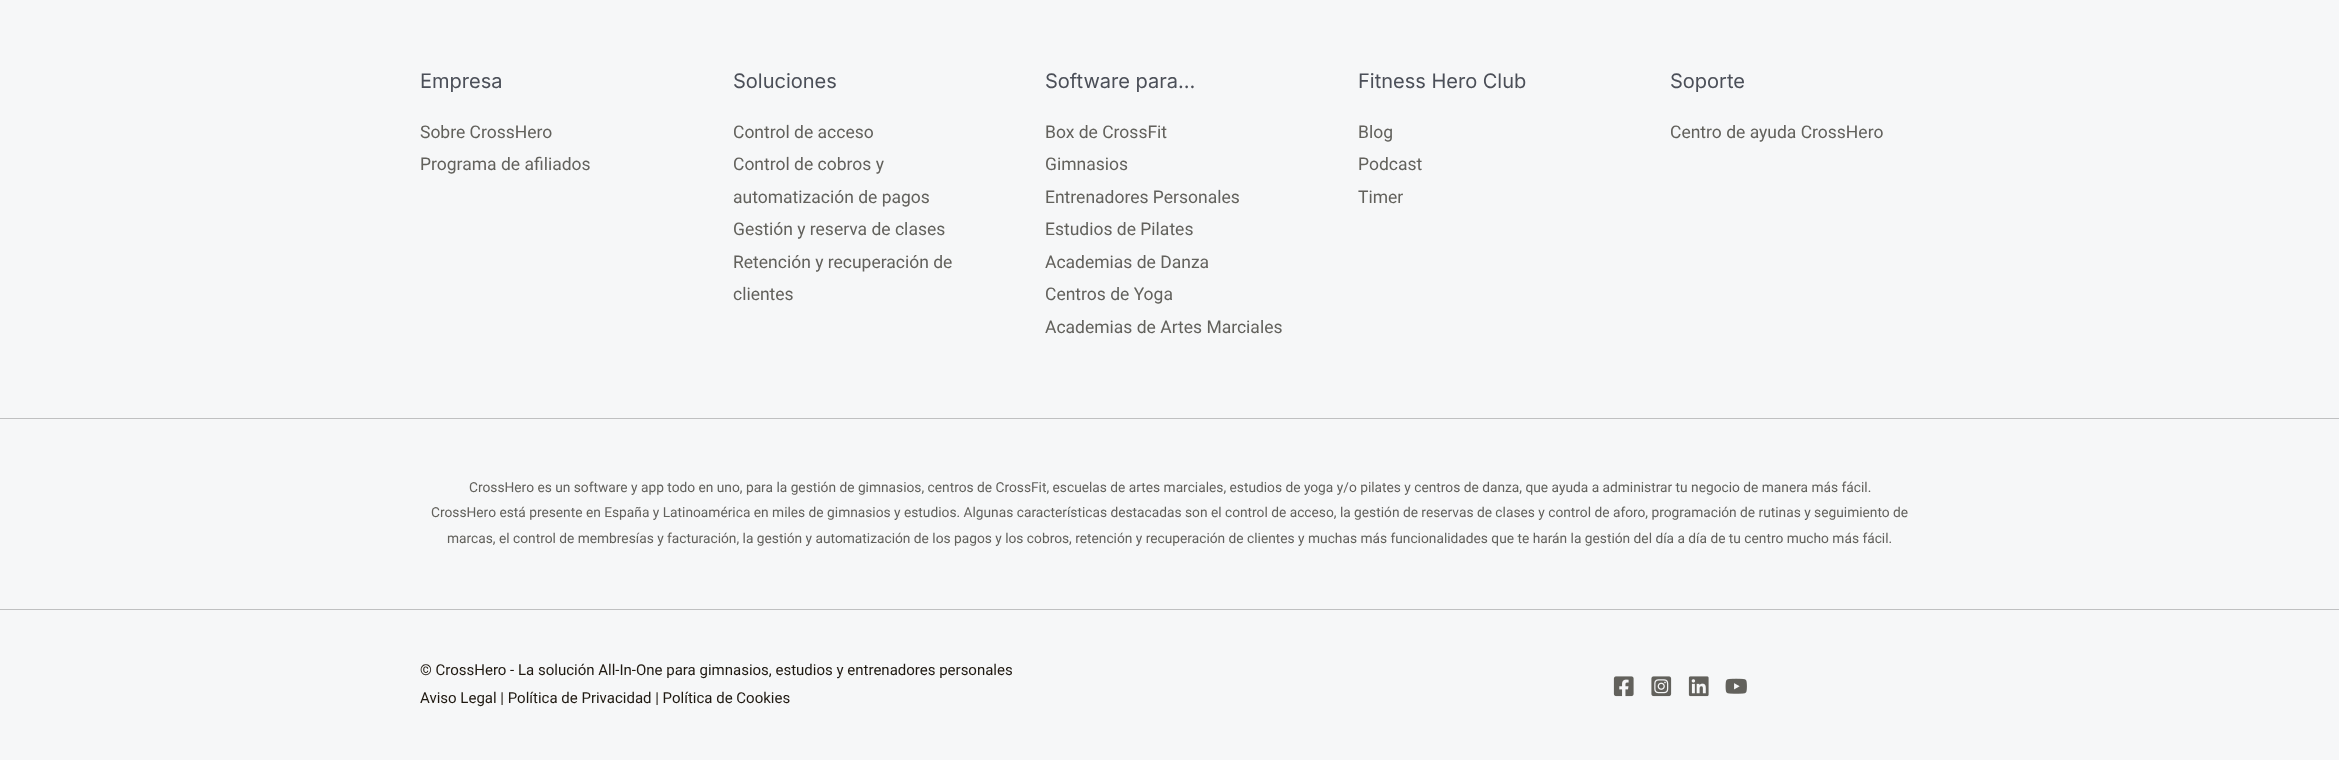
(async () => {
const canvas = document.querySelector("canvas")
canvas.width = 2339
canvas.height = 760
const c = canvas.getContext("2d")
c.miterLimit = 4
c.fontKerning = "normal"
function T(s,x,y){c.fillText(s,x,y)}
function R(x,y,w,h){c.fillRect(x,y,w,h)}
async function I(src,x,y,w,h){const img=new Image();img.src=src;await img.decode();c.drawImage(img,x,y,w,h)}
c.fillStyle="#f6f7f8"
R(0,0,2339,760)
c.font="20px Inter"
c.fillStyle="#4b4f58"
T("Empresa",420,88)
c.font="17.5px Roboto"
c.fillStyle="#62615c"
T("Sobre CrossHero",420,138)
T("Programa de afiliados",420,170)
c.font="20px Inter"
c.fillStyle="#4b4f58"
T("Soluciones",733,88)
c.font="17.5px Roboto"
c.fillStyle="#62615c"
T("Control de acceso",733,138)
T("Control de cobros y",733,170)
T("automatización de pagos",733,203)
T("Gestión y reserva de clases",733,235)
T("Retención y recuperación de",733,268)
T("clientes",733,300)
c.font="20px Inter"
c.fillStyle="#4b4f58"
T("Software para…",1045,88)
c.font="17.5px Roboto"
c.fillStyle="#62615c"
T("Box de CrossFit",1045,138)
T("Gimnasios",1045,170)
T("Entrenadores Personales",1045,203)
T("Estudios de Pilates",1045,235)
T("Academias de Danza",1045,268)
T("Centros de Yoga",1045,300)
T("Academias de Artes Marciales",1045,333)
c.font="20px Inter"
c.fillStyle="#4b4f58"
T("Fitness Hero Club",1358,88)
c.font="17.5px Roboto"
c.fillStyle="#62615c"
T("Blog",1358,138)
T("Podcast",1358,170)
T("Timer",1358,203)
c.font="20px Inter"
c.fillStyle="#4b4f58"
T("Soporte",1670,88)
c.font="17.5px Roboto"
c.fillStyle="#62615c"
T("Centro de ayuda CrossHero",1670,138)
c.fillStyle="#bfc0c1"
R(0,418,2339,1)
c.font="13.75px Roboto"
c.fillStyle="#62615c"
T("CrossHero es un software y app todo en uno, para la gestión de gimnasios, centros de CrossFit, escuelas de artes marciales, estudios de yoga y/o pilates y centros de danza, que ayuda a administrar tu negocio de manera más fácil.",469,492)
T("CrossHero está presente en España y Latinoamérica en miles de gimnasios y estudios. Algunas características destacadas son el control de acceso, la gestión de reservas de clases y control de aforo, programación de rutinas y seguimiento de",431,517)
T("marcas, el control de membresías y facturación, la gestión y automatización de los pagos y los cobros, retención y recuperación de clientes y muchas más funcionalidades que te harán la gestión del día a día de tu centro mucho más fácil.",447,543)
c.fillStyle="#bfc0c1"
R(0,609,2339,1)
c.font="15px Roboto"
c.fillStyle="#1e1810"
T("© CrossHero - La solución All-In-One para gimnasios, estudios y entrenadores personales",420,675)
T("Aviso Legal | Política de Privacidad | Política de Cookies",420,703)
await I("1.png",1613,676,21,21)
await I("2.png",1651,676,21,21)
await I("3.png",1688,676,21,21)
await I("4.png",1725,678,22,16)
})()
